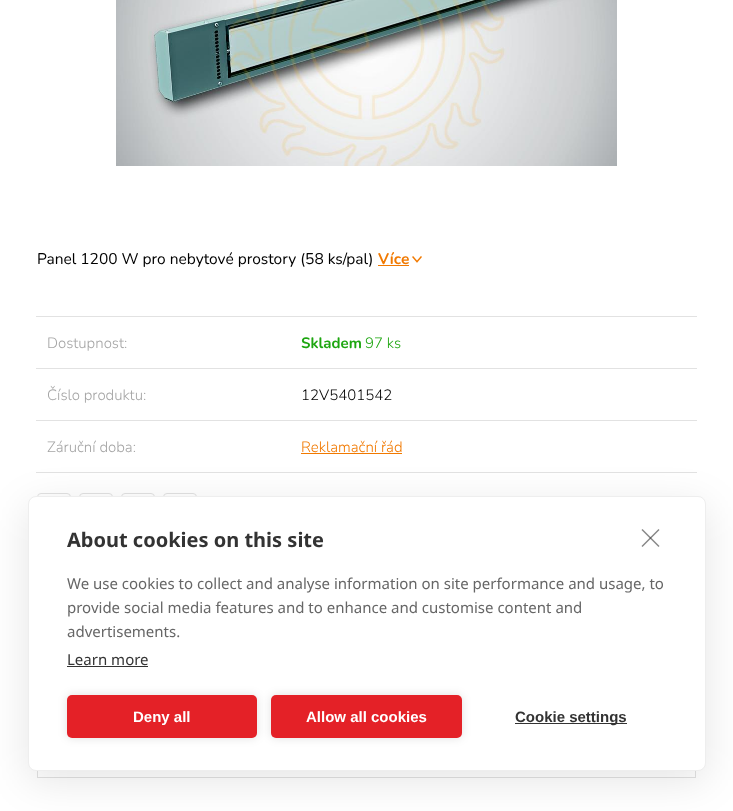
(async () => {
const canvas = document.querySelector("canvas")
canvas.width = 733
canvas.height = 811
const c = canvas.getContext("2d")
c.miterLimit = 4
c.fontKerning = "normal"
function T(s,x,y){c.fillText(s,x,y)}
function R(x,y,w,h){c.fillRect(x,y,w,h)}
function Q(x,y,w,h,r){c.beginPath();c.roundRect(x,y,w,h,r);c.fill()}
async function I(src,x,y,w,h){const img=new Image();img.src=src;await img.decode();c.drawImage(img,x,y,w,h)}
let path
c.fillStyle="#fff"
R(0,0,733,811)
await I("1.png",116,0,501,166)
c.font="15.5px Nunito"
c.fillStyle="#000"
T("Panel 1200 W pro nebytové prostory (58 ks/pal)",37,264)
c.font="bold 15.5px Nunito"
c.fillStyle="#f17900"
T("Více",378,264)
R(378,265,31,1)
await I("2.png",412,256,10,7)
c.fillStyle="#e2e2e2"
R(36,316,661,1)
c.font="300 15px Nunito"
c.fillStyle="#a5a5a5"
T("Dostupnost:",47,348)
c.font="bold 15px Nunito"
c.fillStyle="#1da610"
T("Skladem",301,348)
c.font="300 15px Nunito"
T("97 ks",365,348)
c.fillStyle="#e2e2e2"
R(36,368,661,1)
c.fillStyle="#a5a5a5"
T("Číslo produktu:",47,400)
c.fillStyle="#000"
T("12V5401542",301,400)
c.fillStyle="#e2e2e2"
R(36,420,661,1)
R(36,472,661,1)
c.fillStyle="#a5a5a5"
T("Záruční doba:",47,452)
c.fillStyle="#f17900"
T("Reklamační řád",301,452)
R(301,453,101,1)
c.beginPath()
c.roundRect(37.5,493.5,33,33,3.5)
c.strokeStyle="#e2e2e2"
c.stroke()
c.beginPath()
c.roundRect(79.5,493.5,33,33,3.5)
c.stroke()
c.beginPath()
c.roundRect(121.5,493.5,33,33,3.5)
c.stroke()
c.beginPath()
c.roundRect(163.5,493.5,33,33,3.5)
c.stroke()
c.strokeRect(37.5,584.5,658,193)
c.fillStyle="#0000001a"
c.filter="blur(20px)"
c.beginPath()
c.roundRect(28,506,678,275,8)
c.fill()
c.filter="none"
c.fillStyle="#fff"
c.beginPath()
c.roundRect(28.5,496.5,677,274,7.5)
c.fill()
c.strokeStyle="#eee"
c.stroke()
c.fillStyle="#858585"
path = new Path2D("M641.5 546l17-17l1 1l-17 17z")
c.fill(path)
c.fillStyle="#33333399"
path = new Path2D("M642.5 529l17 17l-1 1l-17-17z")
c.fill(path)
c.font="bold 20px Noto Sans"
c.fillStyle="#333"
T("About cookies on this site",67,547)
c.font="15px Noto Sans"
c.fillStyle="#666"
T("We use cookies to collect and analyse information on site performance and usage, to",67,589)
T("provide social media features and to enhance and customise content and",67,613)
T("advertisements.",67,637)
c.fillStyle="#333"
T("Learn more",67,665)
R(67,666,81,1)
c.fillStyle="#0000001f"
c.filter="blur(5px)"
c.beginPath()
c.roundRect(67,695,190,43,5)
c.fill()
c.filter="none"
c.fillStyle="#e42127"
Q(67,695,190,43,5)
c.font="bold 15px Liberation Sans"
c.fillStyle="#fff"
T("Deny all",133,722)
c.fillStyle="#0000001f"
c.filter="blur(5px)"
c.beginPath()
c.roundRect(271,695,191,43,5)
c.fill()
c.filter="none"
c.fillStyle="#e42127"
Q(271,695,191,43,5)
c.fillStyle="#fff"
T("Allow all cookies",306,722)
c.fillStyle="#333"
R(515,723,112,1)
T("Cookie settings",515,722)
})()
